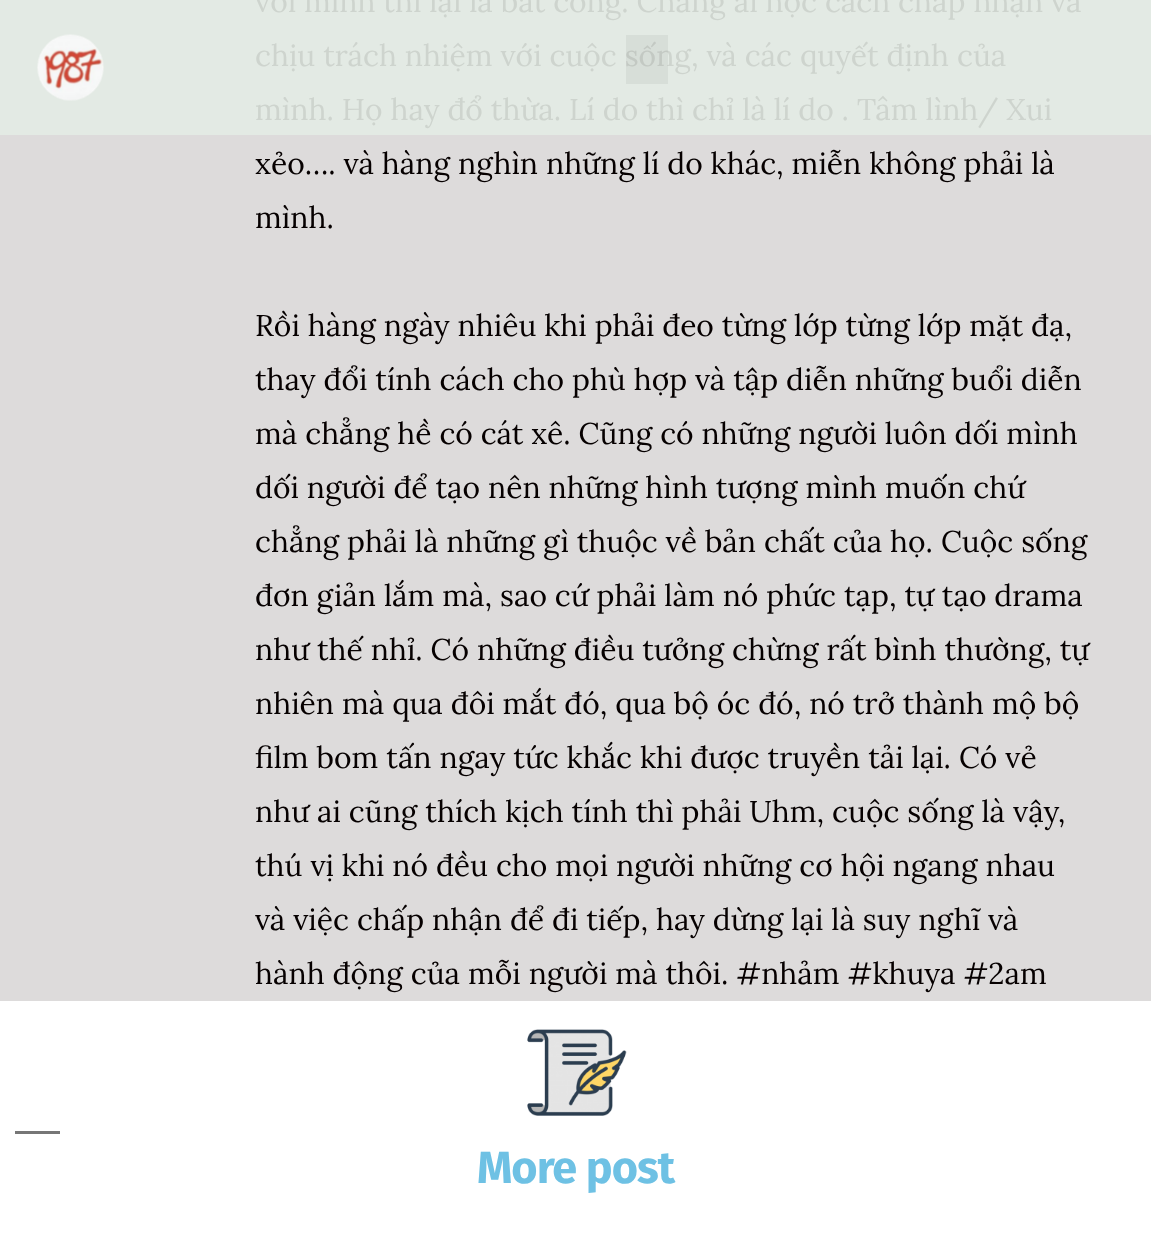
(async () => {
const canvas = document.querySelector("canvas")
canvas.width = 1151
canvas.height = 1235
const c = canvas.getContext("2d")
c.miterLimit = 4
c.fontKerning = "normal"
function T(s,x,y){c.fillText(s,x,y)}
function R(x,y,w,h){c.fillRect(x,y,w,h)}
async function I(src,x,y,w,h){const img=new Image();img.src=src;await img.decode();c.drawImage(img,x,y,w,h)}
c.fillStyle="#fff"
R(0,0,1151,1235)
c.fillStyle="#dddbdb"
R(0,135,1151,866)
c.fillStyle="#e3eae4"
R(0,0,1151,135)
c.font="30px Lora"
c.fillStyle="#ced4ce"
T("với mình thì lại là bất công. Chẳng ai học cách chấp nhận và",255,12)
T("chịu trách nhiệm với cuộc sống, và các quyết định của",255,66)
T("mình. Họ hay đổ thừa. Lí do thì chỉ là lí do . Tâm lình/ Xui",255,120)
c.fillStyle="#060000"
T("xẻo…. và hàng nghìn những lí do khác, miễn không phải là",255,174)
T("mình.",255,228)
T("Rồi hàng ngày nhiêu khi phải đeo từng lớp từng lớp mặt đạ,",255,336)
T("thay đổi tính cách cho phù hợp và tập diễn những buổi diễn",255,390)
T("mà chẳng hề có cát xê. Cũng có những người luôn dối mình",255,444)
T("dối người để tạo nên những hình tượng mình muốn chứ",255,498)
T("chẳng phải là những gì thuộc về bản chất của họ. Cuộc sống",255,552)
T("đơn giản lắm mà, sao cứ phải làm nó phức tạp, tự tạo drama",255,606)
T("như thế nhỉ. Có những điều tưởng chừng rất bình thường, tự",255,660)
T("nhiên mà qua đôi mắt đó, qua bộ óc đó, nó trở thành mộ bộ",255,714)
T("film bom tấn ngay tức khắc khi được truyền tải lại. Có vẻ",255,768)
T("như ai cũng thích kịch tính thì phải Uhm, cuộc sống là vậy,",255,822)
T("thú vị khi nó đều cho mọi người những cơ hội ngang nhau",255,876)
T("và việc chấp nhận để đi tiếp, hay dừng lại là suy nghĩ và",255,930)
T("hành động của mỗi người mà thôi. #nhảm #khuya #2am",255,984)
await I("1.png",527,1029,100,87)
c.fillStyle="#767676"
R(15,1131,45,3)
c.letterSpacing="-1px"
c.font="bold 45px Fira Sans"
c.fillStyle="#6ec1e4"
T("More post",477,1183)
await I("2.png",37,34,67,67)
c.fillStyle="#0000000d"
R(626,35,42,49)
})()
